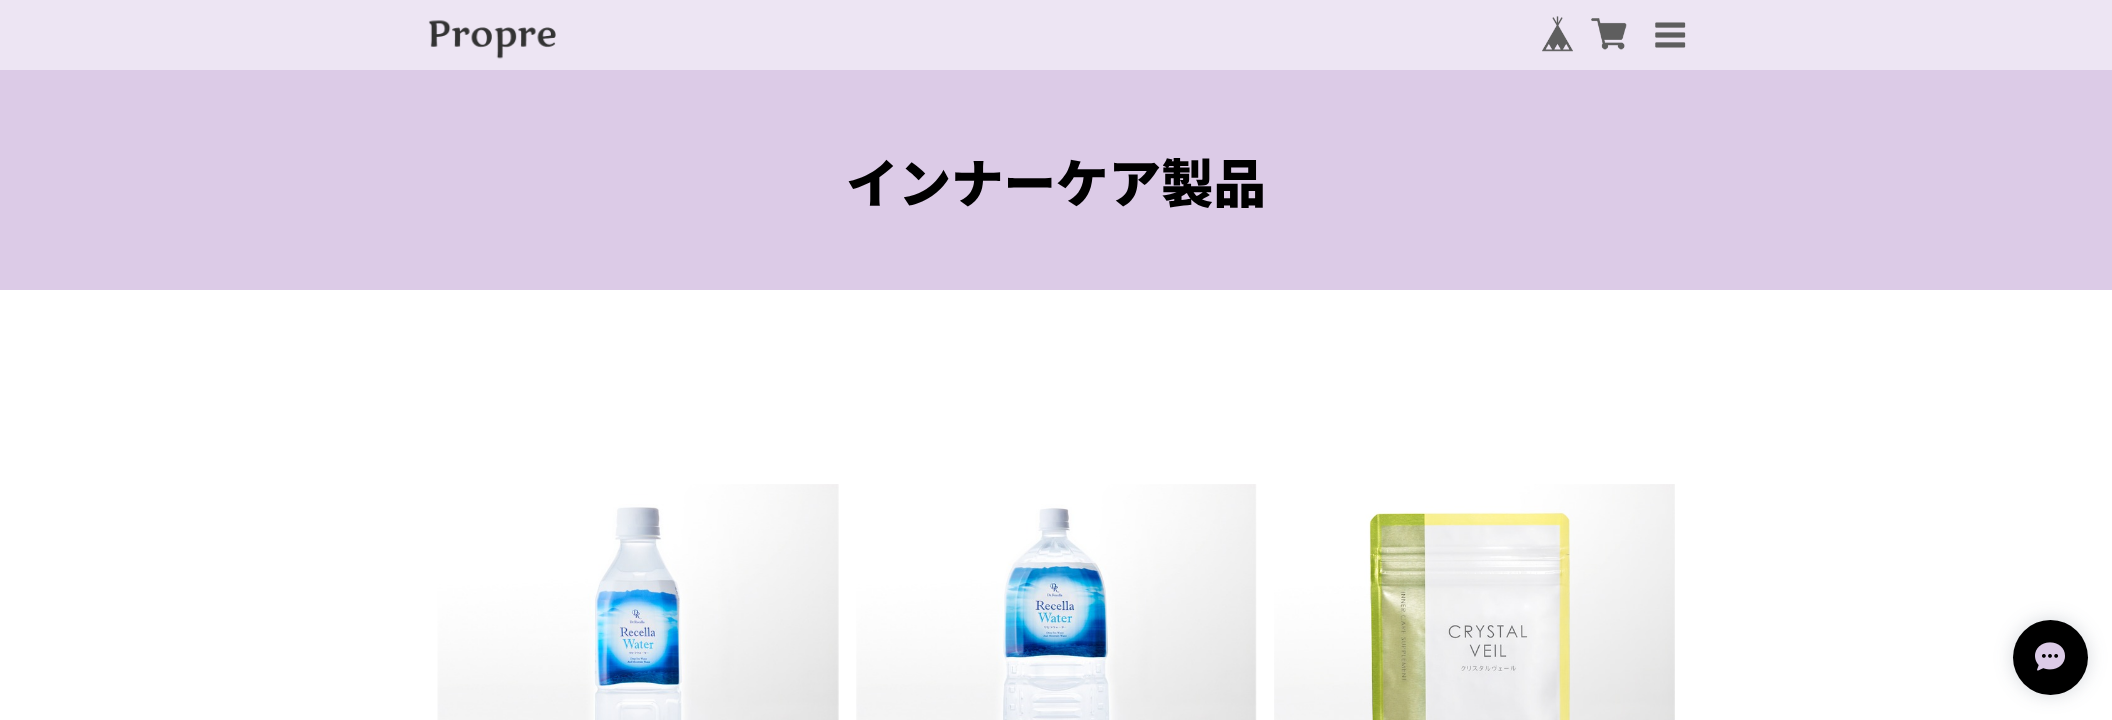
(async () => {
const canvas = document.querySelector("canvas")
canvas.width = 2112
canvas.height = 720
const c = canvas.getContext("2d")
c.miterLimit = 4
c.fontKerning = "normal"
function T(s,x,y){c.fillText(s,x,y)}
function R(x,y,w,h){c.fillRect(x,y,w,h)}
async function I(src,x,y,w,h){const img=new Image();img.src=src;await img.decode();c.drawImage(img,x,y,w,h)}
c.fillStyle="#fff"
R(0,0,2112,720)
c.fillStyle="#ede5f3"
R(0,0,2112,70)
await I("1.png",428,20,128,39)
await I("2.png",1542,16,31,36)
await I("3.png",1591,18,36,32)
await I("4.png",1655,22,31,26)
c.fillStyle="#dccbe7"
R(0,70,2112,220)
c.font="900 52.5px Noto Sans JP"
c.fillStyle="#000"
T("インナーケア製品",846,203)
await I("5.png",437,484,402,236)
await I("6.png",856,484,401,236)
await I("7.png",1274,484,401,236)
c.fillStyle="#33425833"
c.filter="blur(9.5px)"
c.beginPath()
c.roundRect(2013,620,75,75,37.5)
c.fill()
c.filter="none"
c.fillStyle="#000"
c.beginPath()
c.arc(2050.5,657.5,37.5,0,7)
c.fill()
await I("8.png",2035,642,30,29)
})()
